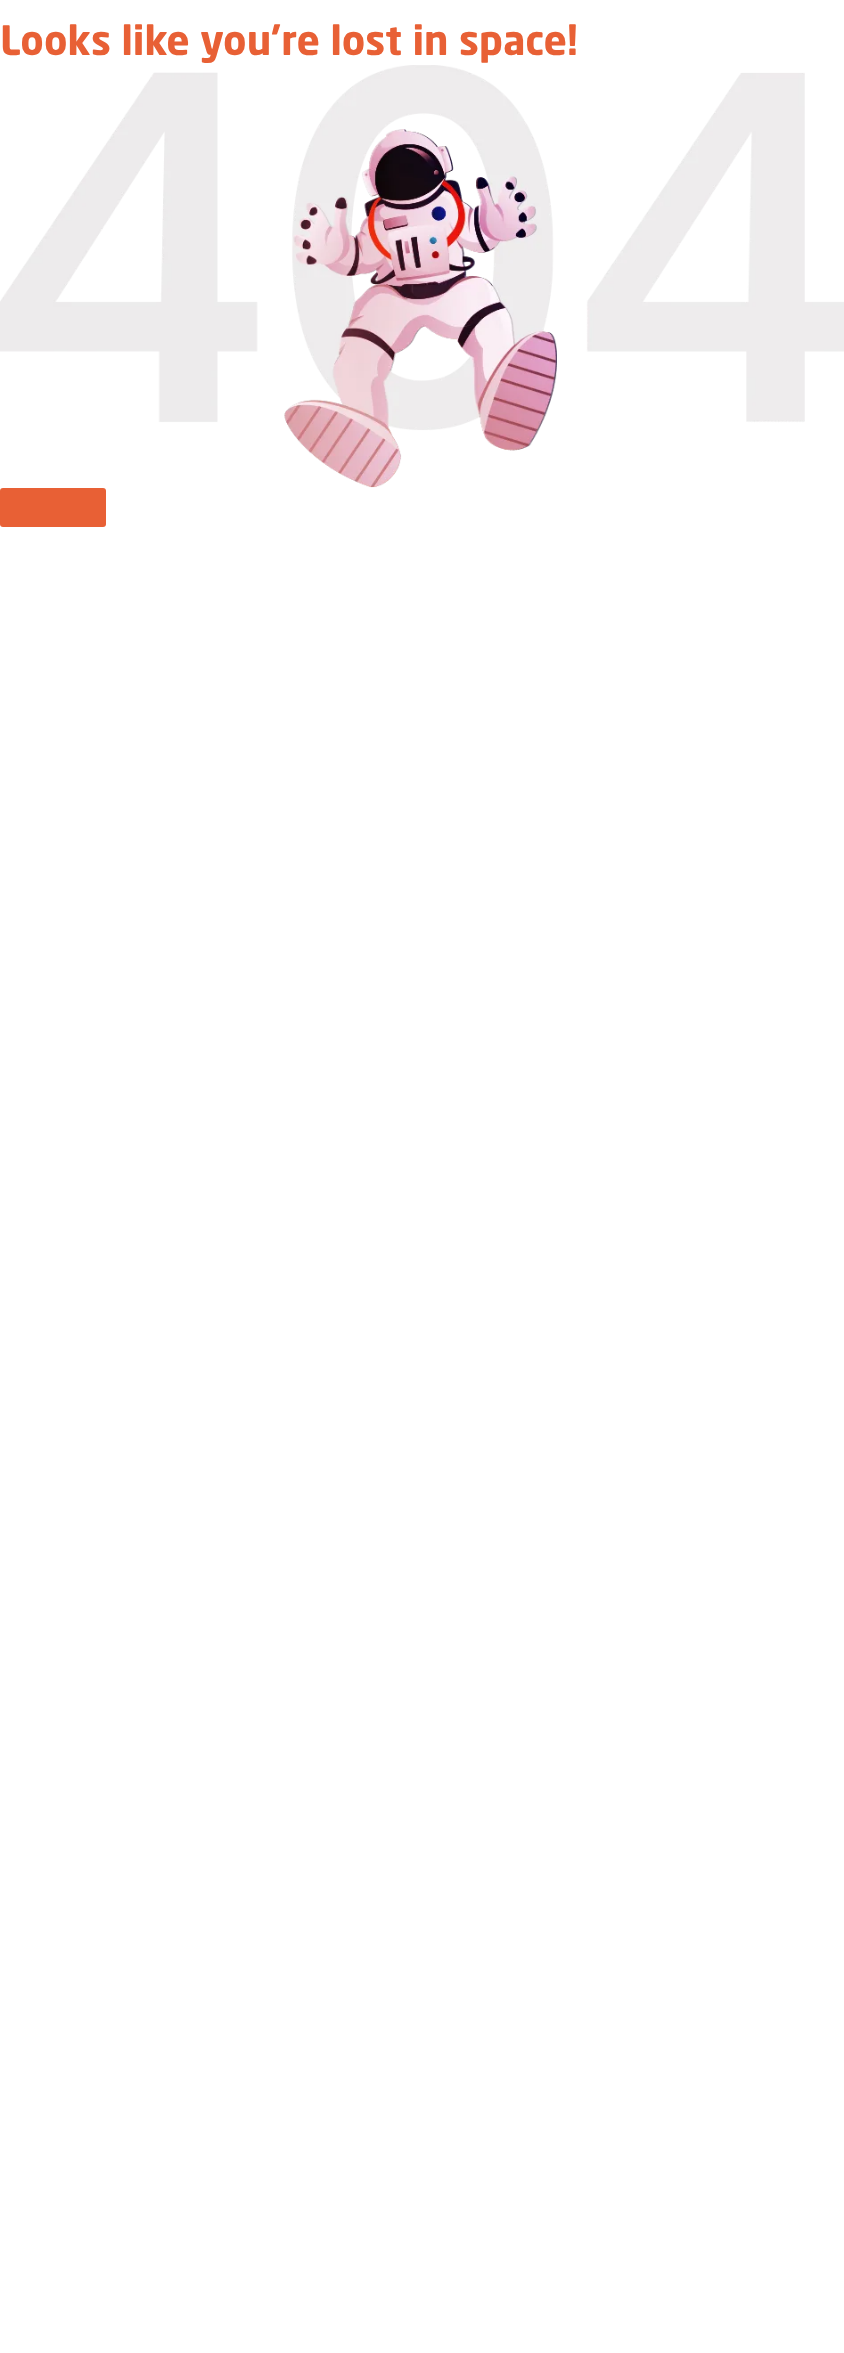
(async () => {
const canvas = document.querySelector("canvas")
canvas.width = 844
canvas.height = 2353
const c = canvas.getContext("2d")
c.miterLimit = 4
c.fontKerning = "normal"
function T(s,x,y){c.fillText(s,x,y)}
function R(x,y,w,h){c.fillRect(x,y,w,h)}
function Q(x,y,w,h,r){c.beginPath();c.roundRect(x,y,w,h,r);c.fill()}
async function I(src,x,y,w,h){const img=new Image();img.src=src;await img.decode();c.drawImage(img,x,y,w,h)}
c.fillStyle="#fff"
R(0,0,844,2353)
c.font="bold 40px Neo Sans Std"
c.fillStyle="#e86035"
T("Looks like you're lost in space!",0,55)
await I("1.png",0,65,844,423)
Q(0,488,106,39,3)
})()
